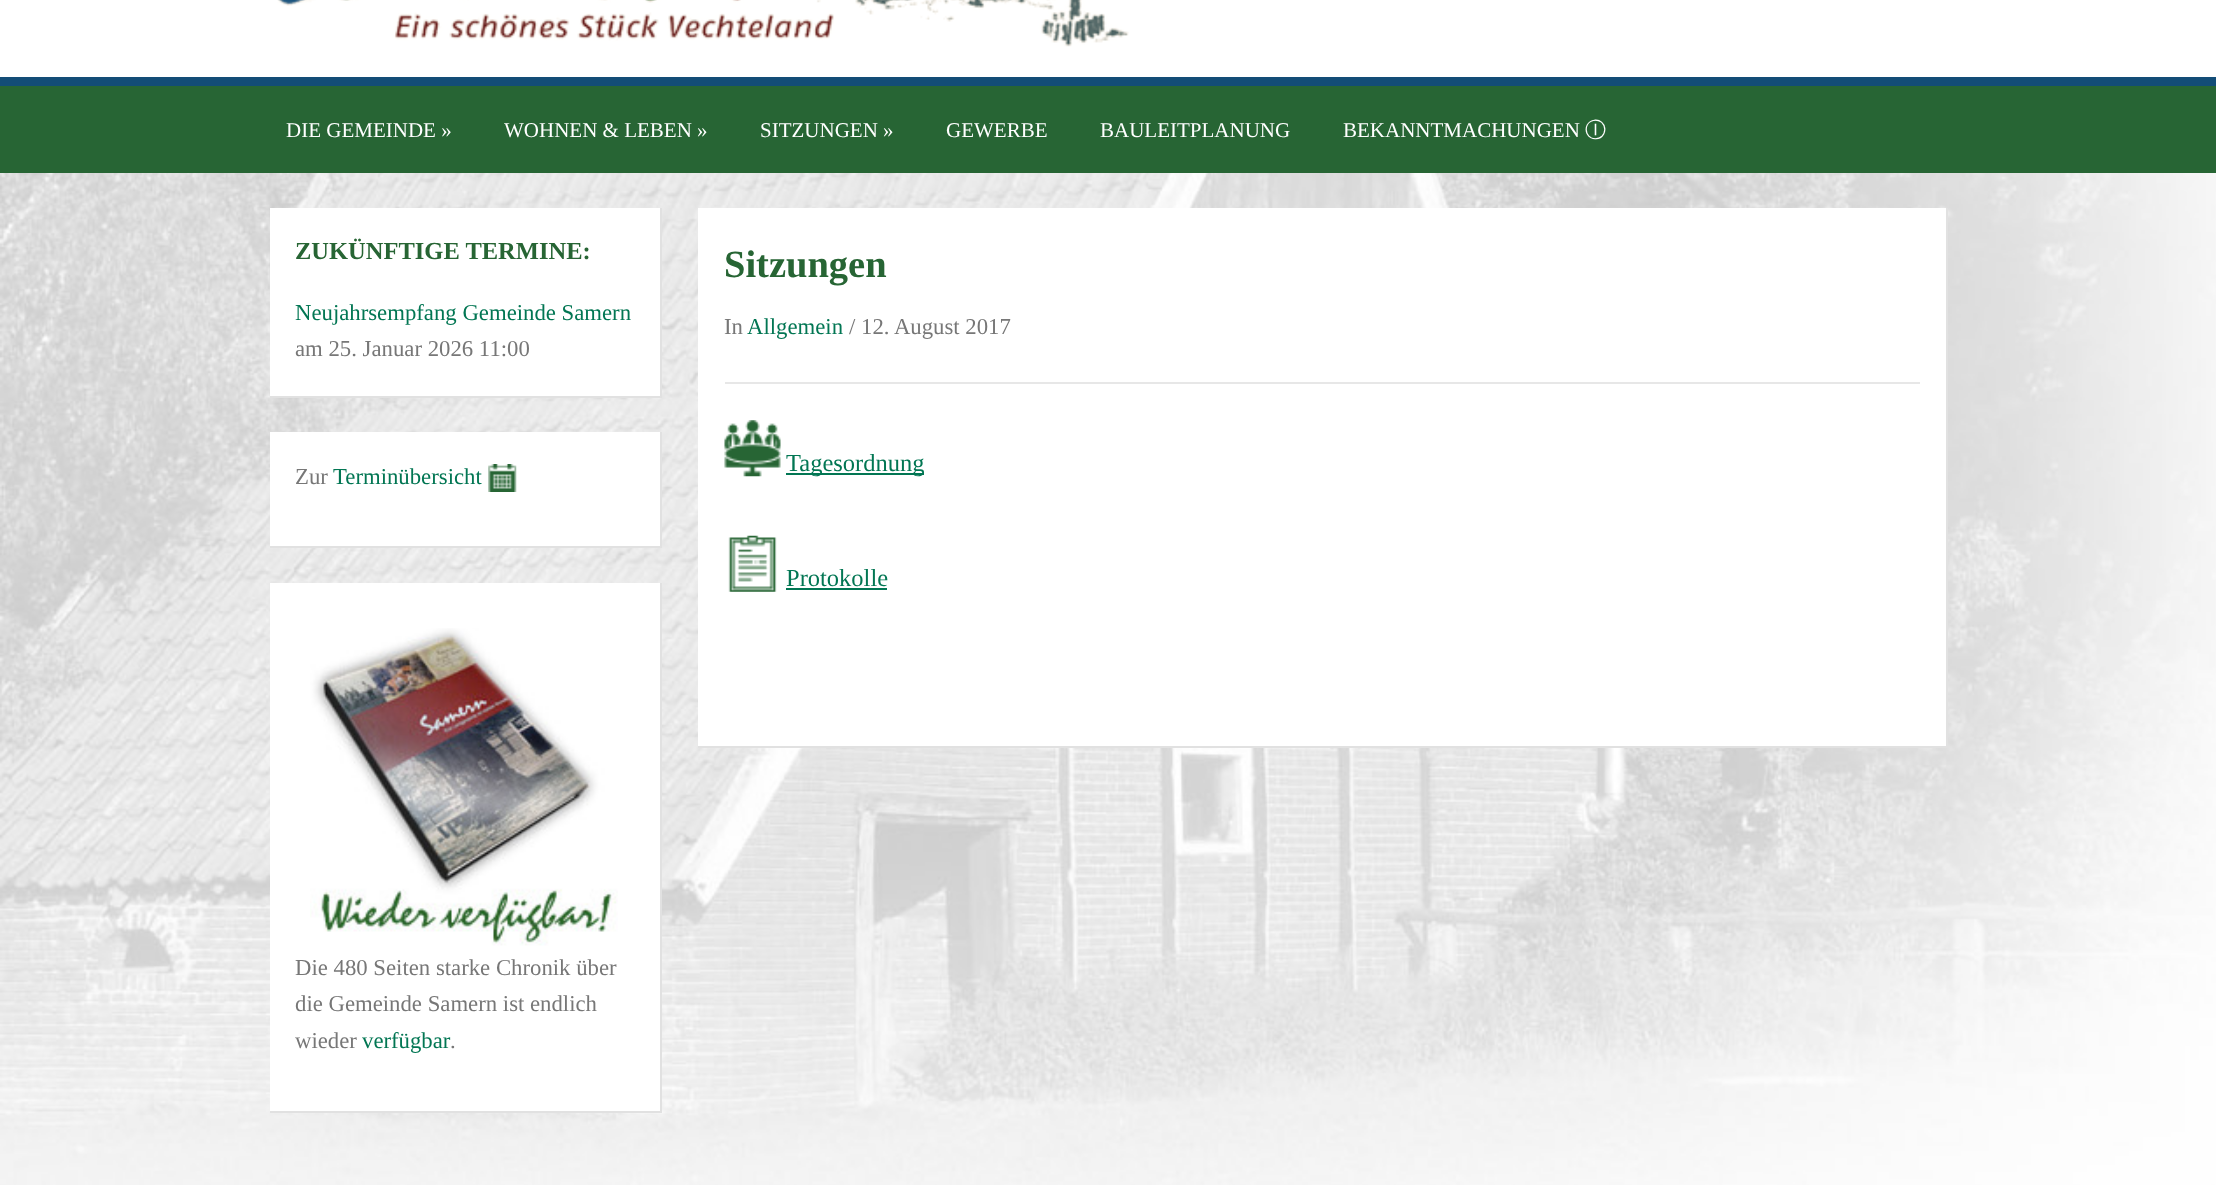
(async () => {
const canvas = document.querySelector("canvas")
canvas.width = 2216
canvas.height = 1185
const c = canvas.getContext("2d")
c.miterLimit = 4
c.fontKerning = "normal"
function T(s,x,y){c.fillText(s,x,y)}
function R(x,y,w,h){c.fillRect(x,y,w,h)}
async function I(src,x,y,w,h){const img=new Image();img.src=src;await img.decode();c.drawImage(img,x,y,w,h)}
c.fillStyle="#fff"
R(0,0,2216,1185)
await I("1.png",0,173,2216,1012)
await I("2.png",277,0,852,47)
c.fillStyle="#276534"
R(0,86,2216,87)
c.fillStyle="#134d77"
R(0,77,2216,9)
c.font="21px Liberation Serif"
c.fillStyle="#fff"
T("DIE GEMEINDE »",286,137)
T("WOHNEN & LEBEN »",504,137)
T("SITZUNGEN »",760,137)
T("GEWERBE",946,137)
T("BAULEITPLANUNG",1100,137)
T("BEKANNTMACHUNGEN",1343,137)
c.font="500 21px WenQuanYi Zen Hei"
T("Ⓘ",1585,137)
R(270,208,390,188)
c.fillStyle="#e1e1e1"
R(660,208,2,189)
R(270,396,392,2)
c.font="bold 24.5px Liberation Serif"
c.fillStyle="#276534"
T("ZUKÜNFTIGE TERMINE:",295,259)
c.font="22.75px Liberation Serif"
c.fillStyle="#027653"
T("Neujahrsempfang Gemeinde Samern",295,320)
c.fillStyle="#777"
T("am 25. Januar 2026 11:00",295,356)
c.fillStyle="#fff"
R(270,432,390,114)
c.fillStyle="#e1e1e1"
R(660,432,2,116)
R(270,546,392,2)
c.fillStyle="#777"
T("Zur",295,484)
c.fillStyle="#027653"
T("Terminübersicht",333,484)
await I("3.png",488,464,29,28)
c.fillStyle="#fff"
R(270,583,390,528)
c.fillStyle="#e1e1e1"
R(660,583,2,530)
R(270,1111,392,2)
await I("4.png",310,628,308,318)
c.fillStyle="#777"
T("Die 480 Seiten starke Chronik über",295,975)
T("die Gemeinde Samern ist endlich",295,1011)
T("wieder",295,1048)
c.fillStyle="#027653"
T("verfügbar",362,1048)
c.fillStyle="#777"
T(".",450,1048)
c.fillStyle="#fff"
R(698,208,1248,538)
c.fillStyle="#e1e1e1"
R(1946,208,2,539)
R(698,746,1250,2)
c.font="bold 38.5px Liberation Serif"
c.fillStyle="#276534"
T("Sitzungen",724,277)
c.font="22.75px Liberation Serif"
c.fillStyle="#777"
T("In",724,334)
c.fillStyle="#027653"
T("Allgemein",747,334)
c.fillStyle="#777"
T("/ 12. August 2017",849,334)
c.fillStyle="#e7e7e7"
R(725,382,1195,2)
await I("5.png",724,420,57,57)
c.fillStyle="#027653"
R(786,473,138,2)
c.font="24.5px Liberation Serif"
T("Tagesordnung",786,471)
await I("6.png",728,535,49,57)
T("Protokolle",786,586)
R(786,588,101,2)
})()
